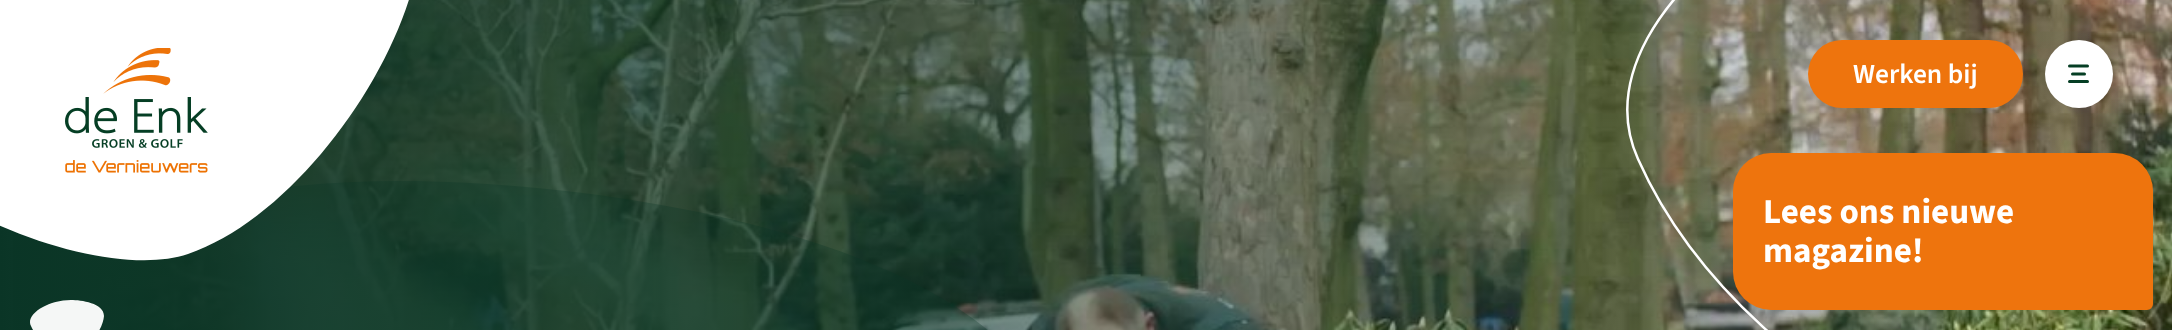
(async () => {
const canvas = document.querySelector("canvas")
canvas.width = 2172
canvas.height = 330
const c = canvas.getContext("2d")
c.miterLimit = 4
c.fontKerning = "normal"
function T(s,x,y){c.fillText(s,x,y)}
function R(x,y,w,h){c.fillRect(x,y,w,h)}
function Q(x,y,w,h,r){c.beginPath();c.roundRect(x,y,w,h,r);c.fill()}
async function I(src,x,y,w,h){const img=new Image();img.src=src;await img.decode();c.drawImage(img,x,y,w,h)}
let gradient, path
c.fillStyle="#fff"
R(0,0,2172,330)
await I("1.png",13,0,2159,330)
c.fillStyle="#0a35264d"
path = new Path2D("M904 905c92-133 156-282 165-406c18-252-450-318-668-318c-141 0-280 27-401 70v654z")
c.fill(path)
gradient = c.createLinearGradient(0,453,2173,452)
gradient.addColorStop(0,"#0a3526")
gradient.addColorStop(1,"#0a352600")
c.fillStyle = gradient
R(0,0,2126,330)
path = new Path2D("M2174.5-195c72.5 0 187 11 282 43c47.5 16 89.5 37 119.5 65c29.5 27.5 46.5 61.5 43.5 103.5c-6 87-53 193.5-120 285.5c-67.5 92.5-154.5 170-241 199.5c-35.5 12-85 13-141 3c-56-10-118.5-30.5-180-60.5c-123.5-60-243-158-299.5-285c-17.5-39-12.5-80.5 9.5-121c22.5-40.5 62-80 113.5-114.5c103.5-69 255-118.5 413.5-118.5z")
c.strokeStyle="#fff"
c.lineWidth=2.5
c.stroke(path)
c.fillStyle="#fff"
path = new Path2D("M133-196c94 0 296 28 288 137c-8 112-121 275-233 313c-92 31-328-57-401-221c-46-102 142-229 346-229z")
c.fill(path)
await I("2.png",65,48,143,125)
c.fillStyle="#ee740d"
Q(1808,40,215,68,34)
c.font="600 27.5px 'Source Sans 3'"
c.fillStyle="#fff"
T("Werken bij",1853,83)
c.fillStyle="#fffffff5"
path = new Path2D("M71 300c10 0 33 3 33 16c-1 13-14 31-27 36c-11 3-38-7-46-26c-6-11 16-26 40-26z")
c.fill(path)
c.fillStyle="#0000001a"
c.filter="blur(5px)"
c.beginPath()
c.roundRect(2045,40,68,68,34)
c.fill()
c.filter="none"
c.fillStyle="#fff"
c.beginPath()
c.arc(2079,74,34,0,7)
c.fill()
path = new Path2D("M2072.5 74h12m-15-8h18m-18 15.5h18")
c.strokeStyle="#053e24"
c.lineWidth=3
c.lineCap="round"
c.stroke(path)
c.fillStyle="#ee740d"
c.beginPath()
c.roundRect(1733,153,420,157,[38,38,6,38])
c.fill()
c.font="bold 35px 'Source Sans 3'"
c.fillStyle="#fff"
T("Lees ons nieuwe",1763,223)
T("magazine!",1763,262)
})()
